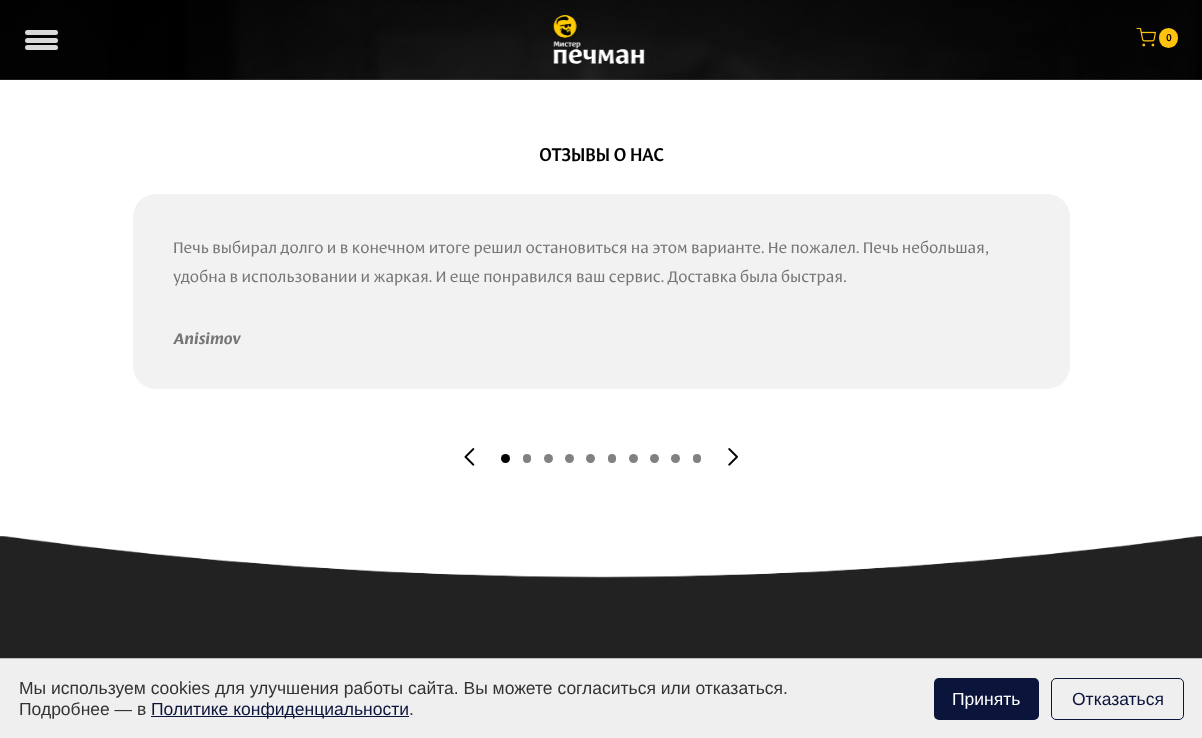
(async () => {
const canvas = document.querySelector("canvas")
canvas.width = 1202
canvas.height = 738
const c = canvas.getContext("2d")
c.miterLimit = 4
c.fontKerning = "normal"
function T(s,x,y){c.fillText(s,x,y)}
function R(x,y,w,h){c.fillRect(x,y,w,h)}
function Q(x,y,w,h,r){c.beginPath();c.roundRect(x,y,w,h,r);c.fill()}
async function I(src,x,y,w,h){const img=new Image();img.src=src;await img.decode();c.drawImage(img,x,y,w,h)}
c.fillStyle="#fff"
R(0,0,1202,738)
await I("1.png",0,0,1202,80)
c.fillStyle="#d9d9d9"
Q(25,30,33,5,2.5)
Q(25,38,33,5,2.5)
Q(25,45,33,5,2.5)
await I("2.png",553,15,92,49)
await I("3.png",1136,28,20,19)
c.fillStyle="#ffc20e"
Q(1159,28,19,20,9.5)
c.font="bold 11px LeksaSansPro"
c.fillStyle="#000"
T("0",1166,41)
c.font="bold 20px LeksaSansPro"
T("ОТЗЫВЫ О НАС",539,161)
c.fillStyle="#f2f2f2"
Q(133,194,937,195,23)
c.font="17.5px LeksaSansPro"
c.fillStyle="#767676"
T("Печь выбирал долго и в конечном итоге решил остановиться на этом варианте. Не пожалел. Печь небольшая,",173,253)
T("удобна в использовании и жаркая. И еще понравился ваш сервис. Доставка была быстрая.",173,282)
c.font="italic bold 17.5px LeksaSansPro"
T("Anisimov",173,344)
await I("4.png",464,448,11,18)
c.fillStyle="#000"
c.beginPath()
c.arc(505.5,458.5,4.5,0,7)
c.fill()
c.fillStyle="#818181"
Q(523,454,8,9,4)
c.beginPath()
c.arc(548.5,458.5,4.5,0,7)
c.fill()
c.beginPath()
c.arc(569.5,458.5,4.5,0,7)
c.fill()
c.beginPath()
c.arc(590.5,458.5,4.5,0,7)
c.fill()
Q(608,454,8,9,4)
c.beginPath()
c.arc(633.5,458.5,4.5,0,7)
c.fill()
c.beginPath()
c.arc(654.5,458.5,4.5,0,7)
c.fill()
c.beginPath()
c.arc(675.5,458.5,4.5,0,7)
c.fill()
Q(693,454,8,9,4)
await I("5.png",728,448,10,18)
c.fillStyle="#222"
R(0,536,1202,122)
await I("6.png",0,536,1202,42)
c.fillStyle="#efefef"
R(0,659,1202,79)
c.fillStyle="#bebebe"
R(0,658,1202,1)
c.font="17.5px Liberation Sans"
c.fillStyle="#333"
T("Мы используем cookies для улучшения работы сайта. Вы можете согласиться или отказаться.",19,694)
T("Подробнее — в",19,715)
c.fillStyle="#0b143b"
R(151,716,258,1)
T("Политике конфиденциальности",151,715)
c.fillStyle="#333"
T(".",409,715)
c.fillStyle="#0b143b"
Q(934,678,105,42,5)
c.fillStyle="#fff"
T("Принять",952,705)
c.beginPath()
c.roundRect(1051.5,678.5,132,41,4.5)
c.strokeStyle="#0b143b"
c.stroke()
c.fillStyle="#0b143b"
T("Отказаться",1072,705)
})()
